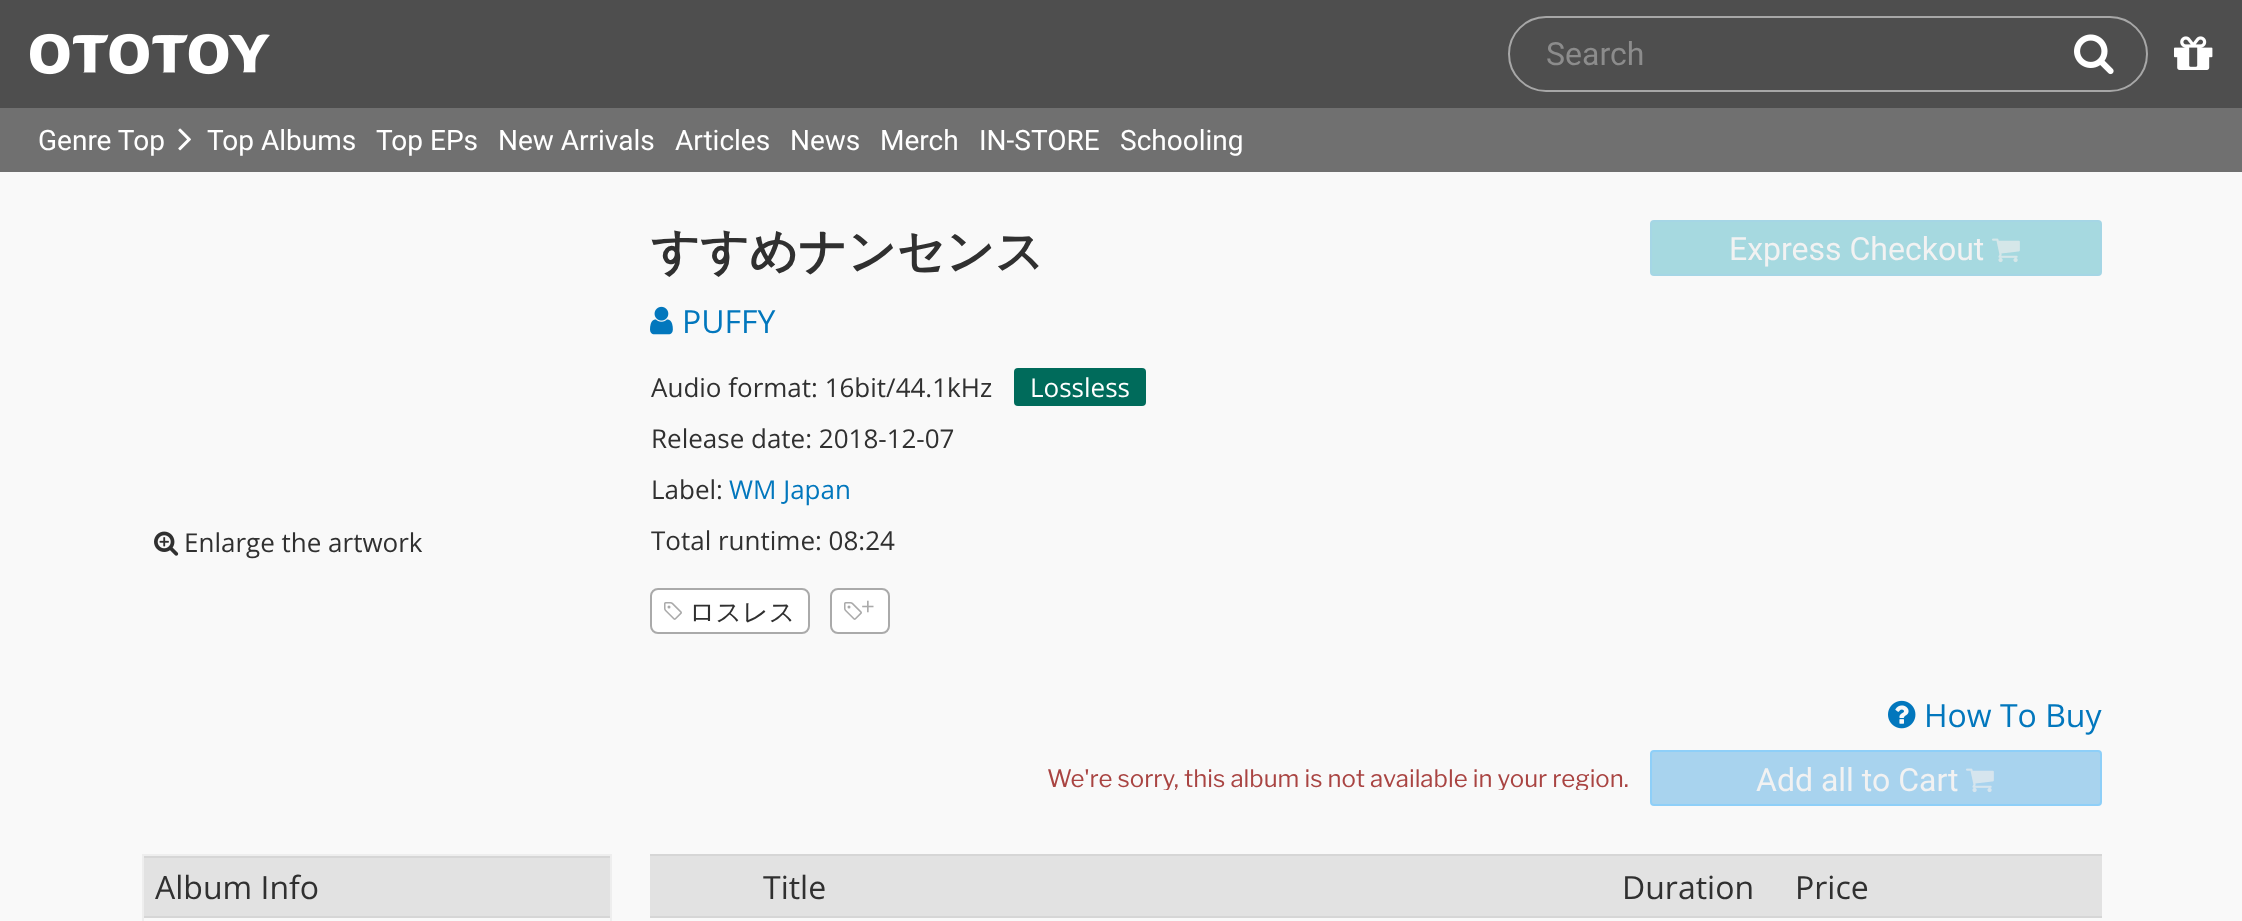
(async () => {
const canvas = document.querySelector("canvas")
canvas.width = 2242
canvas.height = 921
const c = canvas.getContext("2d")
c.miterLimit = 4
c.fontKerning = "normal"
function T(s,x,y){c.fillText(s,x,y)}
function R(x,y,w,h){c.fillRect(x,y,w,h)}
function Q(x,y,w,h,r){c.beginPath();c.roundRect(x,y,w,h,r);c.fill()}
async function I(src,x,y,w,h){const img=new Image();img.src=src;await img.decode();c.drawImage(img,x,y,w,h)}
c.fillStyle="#f9f9f9"
R(0,0,2242,921)
c.fillStyle="#4e4e4e"
R(0,0,2242,108)
await I("1.png",30,33,240,42)
c.beginPath()
c.roundRect(1509,17,638,74,37)
c.strokeStyle="#a7a7a7"
c.lineWidth=2
c.stroke()
c.font="32px Roboto"
c.fillStyle="#8c8c8c"
T("Search",1546,65)
await I("2.png",2074,34,40,41)
await I("3.png",2174,36,39,34)
c.fillStyle="#707070"
R(0,108,2242,64)
c.font="28px Roboto"
c.fillStyle="#fff"
T("Genre Top",38,150)
await I("4.png",178,128,13,23)
T("Top Albums",207,150)
T("Top EPs",376,150)
T("New Arrivals",498,150)
T("Articles",675,150)
T("News",790,150)
T("Merch",880,150)
T("IN-STORE",979,150)
T("Schooling",1120,150)
await I("5.png",154,531,25,25)
c.font="26px Open Sans"
c.fillStyle="#303030"
T("Enlarge the artwork",184,552)
c.font="bold 48px WenQuanYi Zen Hei"
T("すすめナンセンス",651,268)
c.fillStyle="#a6d9e0"
c.beginPath()
c.roundRect(1651,221,450,54,3)
c.fill()
c.strokeStyle="#a5d6e5"
c.stroke()
c.font="32px Roboto"
c.fillStyle="#f2f2f2"
T("Express Checkout",1729,260)
await I("6.png",1992,238,28,25)
await I("7.png",650,306,23,29)
c.font="32px Open Sans"
c.fillStyle="#0277bd"
T("PUFFY",682,333)
c.font="26px Open Sans"
c.fillStyle="#303030"
T("Audio format: 16bit/44.1kHz",651,397)
c.fillStyle="#006b5b"
Q(1014,368,132,38,4)
c.fillStyle="#fff"
T("Lossless",1030,397)
c.fillStyle="#303030"
T("Release date: 2018-12-07",651,448)
T("Label:",651,499)
c.fillStyle="#0277bd"
T("WM Japan",729,499)
c.fillStyle="#303030"
T("Total runtime: 08:24",651,550)
c.fillStyle="#fff"
c.beginPath()
c.roundRect(651,589,158,44,7)
c.fill()
c.strokeStyle="#aaa"
c.stroke()
await I("8.png",664,602,18,18)
c.font="500 26px WenQuanYi Zen Hei"
c.fillStyle="#303030"
T("ロスレス",689,621)
c.fillStyle="#fff"
c.beginPath()
c.roundRect(831,589,58,44,7)
c.fill()
c.stroke()
await I("8.png",844,602,18,18)
c.font="24px Open Sans"
c.fillStyle="#aaa"
T("+",861,615)
await I("9.png",1888,700,28,29)
c.font="32px Open Sans"
c.fillStyle="#0277bd"
T("How To Buy",1924,727)
c.save()
c.beginPath()
c.rect(1048,766,582,24)
c.clip()
c.font="100 24px Libre Franklin"
c.fillStyle="#a94442"
T("We're sorry, this album is not available in your region.",1047,787)
c.restore()
c.fillStyle="#a8d3ee"
c.beginPath()
c.roundRect(1651,751,450,54,3)
c.fill()
c.strokeStyle="#8ecff8"
c.stroke()
c.font="32px Roboto"
c.fillStyle="#f2f2f2"
T("Add all to Cart",1756,791)
await I("10.png",1966,768,28,25)
c.strokeStyle="#eee"
c.strokeRect(143,855,468,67)
c.fillStyle="#e2e2e2"
R(144,858,466,58)
c.fillStyle="#d6d6d6"
R(144,856,466,2)
R(144,916,466,2)
c.font="32px Open Sans"
c.fillStyle="#303030"
T("Album Info",155,899)
c.fillStyle="#e2e2e2"
R(650,856,1452,60)
c.fillStyle="#303030"
T("Title",763,899)
T("Duration",1622,899)
c.fillStyle="#d6d6d6"
R(650,854,1452,2)
R(650,916,1452,2)
c.fillStyle="#303030"
T("Price",1795,899)
})()
